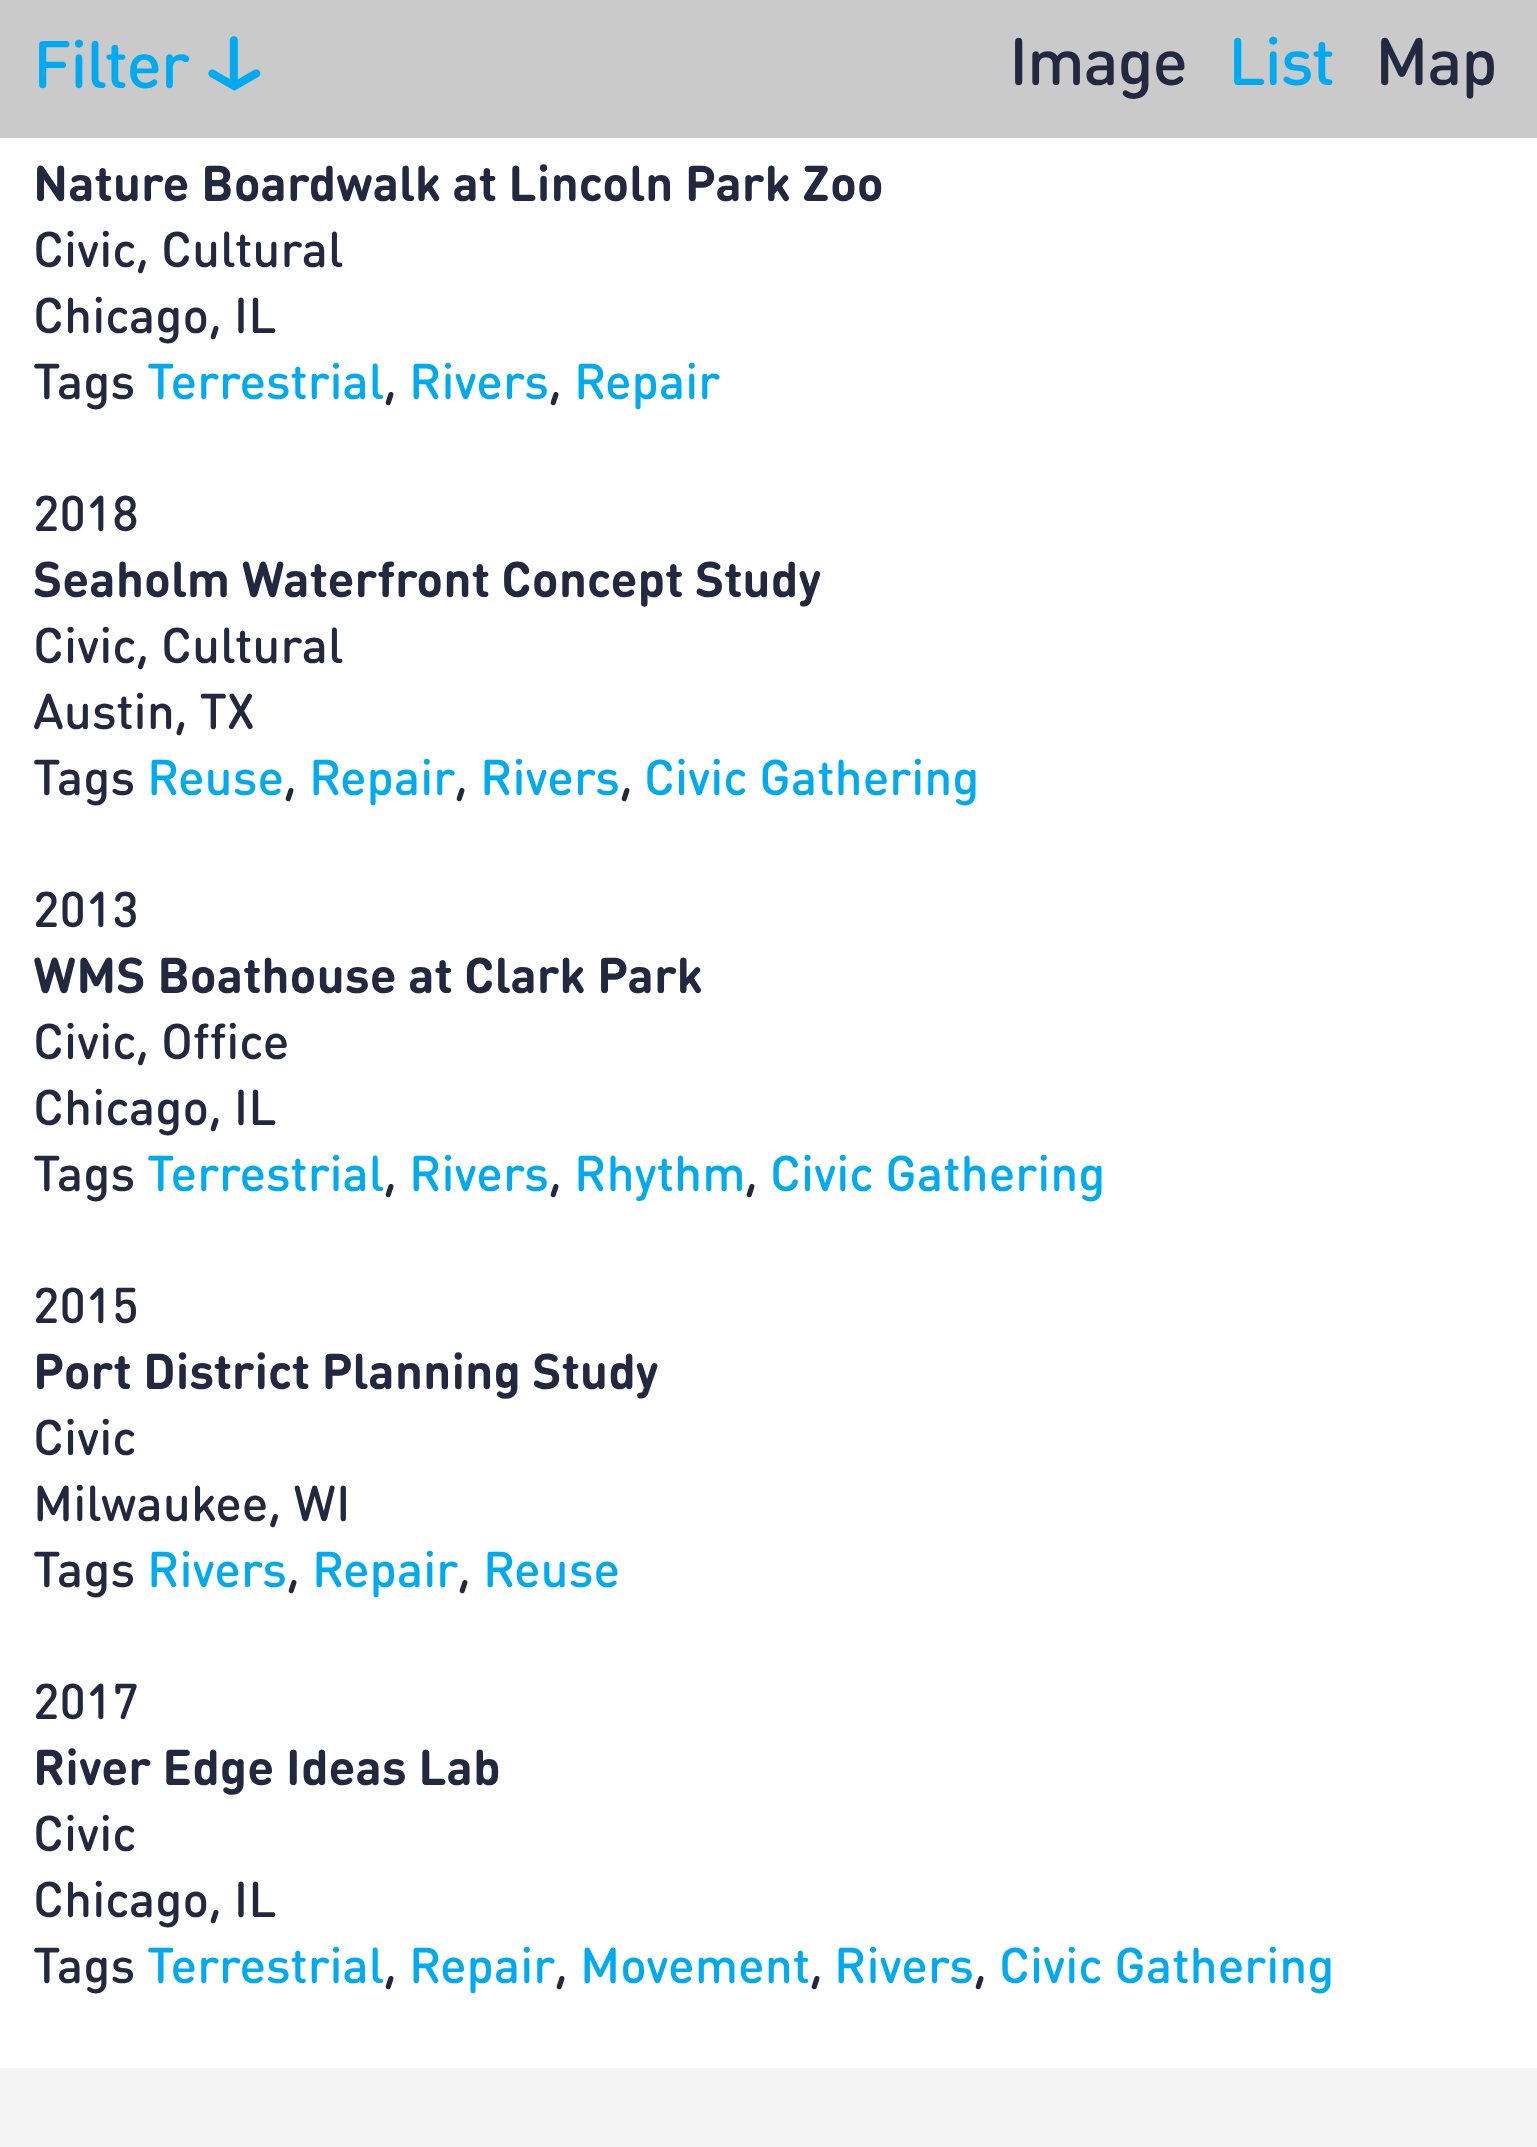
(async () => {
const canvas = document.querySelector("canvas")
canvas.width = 1537
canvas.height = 2147
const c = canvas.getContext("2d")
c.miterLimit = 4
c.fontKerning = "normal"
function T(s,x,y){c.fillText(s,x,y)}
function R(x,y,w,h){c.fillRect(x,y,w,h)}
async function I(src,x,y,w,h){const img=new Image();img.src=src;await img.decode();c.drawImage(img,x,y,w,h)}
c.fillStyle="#fff"
R(0,0,1537,2147)
c.fillStyle="#cacaca"
R(0,0,1537,138)
c.letterSpacing="-1.25px"
c.font="500 66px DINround"
c.fillStyle="#00aaf0"
T("Filter",33,88)
await I("1.png",208,36,53,55)
c.fillStyle="#232841"
T("Image",1009,85)
c.fillStyle="#00aaf0"
T("List",1228,85)
c.fillStyle="#232841"
T("Map",1375,85)
c.letterSpacing="0px"
c.font="bold 49.5px DINround"
T("Nature Boardwalk at Lincoln Park Zoo",33,201)
c.font="500 49.5px DINround"
T("Civic, Cultural",33,267)
T("Chicago, IL",33,333)
T("Tags",33,399)
c.fillStyle="#00aaf0"
T("Terrestrial",147,399)
c.fillStyle="#232841"
T(",",384,399)
c.fillStyle="#00aaf0"
T("Rivers",409,399)
c.fillStyle="#232841"
T(",",549,399)
c.fillStyle="#00aaf0"
T("Repair",574,399)
c.fillStyle="#232841"
T("2018",33,531)
c.font="bold 49.5px DINround"
T("Seaholm Waterfront Concept Study",33,597)
c.font="500 49.5px DINround"
T("Civic, Cultural",33,663)
T("Austin, TX",33,729)
T("Tags",33,795)
c.fillStyle="#00aaf0"
T("Reuse",147,795)
c.fillStyle="#232841"
T(",",284,795)
c.fillStyle="#00aaf0"
T("Repair",309,795)
c.fillStyle="#232841"
T(",",455,795)
c.fillStyle="#00aaf0"
T("Rivers",480,795)
c.fillStyle="#232841"
T(",",620,795)
c.fillStyle="#00aaf0"
T("Civic Gathering",644,795)
c.fillStyle="#232841"
T("2013",33,927)
c.font="bold 49.5px DINround"
T("WMS Boathouse at Clark Park",33,993)
c.font="500 49.5px DINround"
T("Civic, Office",33,1059)
T("Chicago, IL",33,1125)
T("Tags",33,1191)
c.fillStyle="#00aaf0"
T("Terrestrial",147,1191)
c.fillStyle="#232841"
T(",",384,1191)
c.fillStyle="#00aaf0"
T("Rivers",409,1191)
c.fillStyle="#232841"
T(",",549,1191)
c.fillStyle="#00aaf0"
T("Rhythm",574,1191)
c.fillStyle="#232841"
T(",",745,1191)
c.fillStyle="#00aaf0"
T("Civic Gathering",770,1191)
c.fillStyle="#232841"
T("2015",33,1323)
c.font="bold 49.5px DINround"
T("Port District Planning Study",33,1389)
c.font="500 49.5px DINround"
T("Civic",33,1455)
T("Milwaukee, WI",33,1521)
T("Tags",33,1587)
c.fillStyle="#00aaf0"
T("Rivers",147,1587)
c.fillStyle="#232841"
T(",",287,1587)
c.fillStyle="#00aaf0"
T("Repair",312,1587)
c.fillStyle="#232841"
T(",",458,1587)
c.fillStyle="#00aaf0"
T("Reuse",483,1587)
c.fillStyle="#232841"
T("2017",33,1719)
c.font="bold 49.5px DINround"
T("River Edge Ideas Lab",33,1785)
c.font="500 49.5px DINround"
T("Civic",33,1851)
T("Chicago, IL",33,1917)
T("Tags",33,1983)
c.fillStyle="#00aaf0"
T("Terrestrial",147,1983)
c.fillStyle="#232841"
T(",",384,1983)
c.fillStyle="#00aaf0"
T("Repair",409,1983)
c.fillStyle="#232841"
T(",",555,1983)
c.fillStyle="#00aaf0"
T("Movement",580,1983)
c.fillStyle="#232841"
T(",",810,1983)
c.fillStyle="#00aaf0"
T("Rivers",834,1983)
c.fillStyle="#232841"
T(",",974,1983)
c.fillStyle="#00aaf0"
T("Civic Gathering",999,1983)
c.fillStyle="#f4f4f5"
R(0,2068,1537,79)
})()
